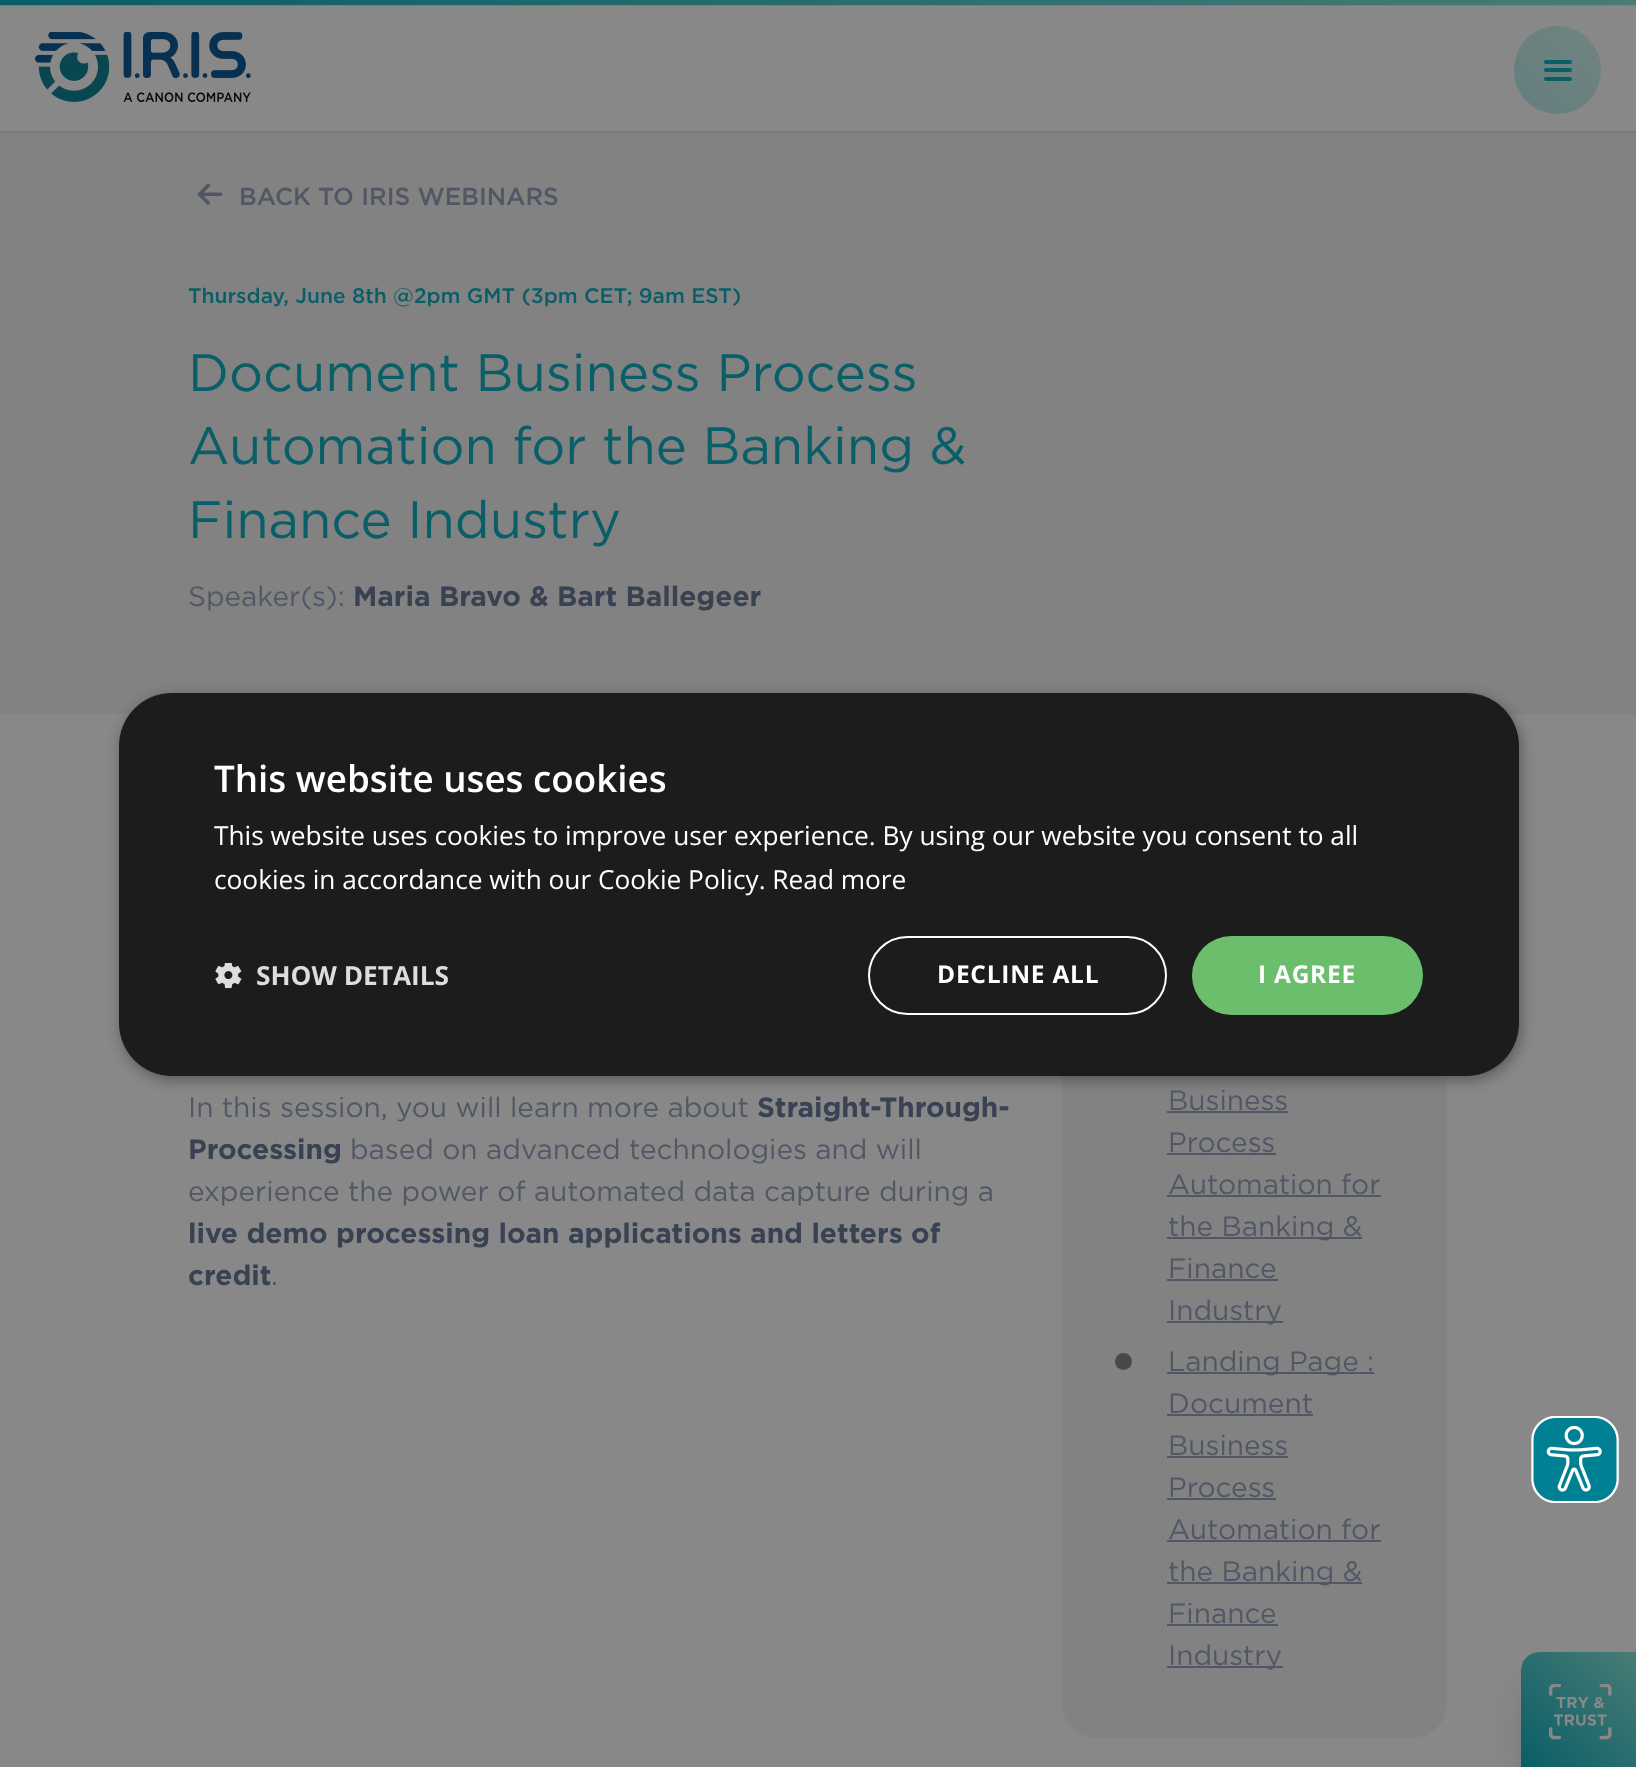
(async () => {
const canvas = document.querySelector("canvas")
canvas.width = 1636
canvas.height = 1767
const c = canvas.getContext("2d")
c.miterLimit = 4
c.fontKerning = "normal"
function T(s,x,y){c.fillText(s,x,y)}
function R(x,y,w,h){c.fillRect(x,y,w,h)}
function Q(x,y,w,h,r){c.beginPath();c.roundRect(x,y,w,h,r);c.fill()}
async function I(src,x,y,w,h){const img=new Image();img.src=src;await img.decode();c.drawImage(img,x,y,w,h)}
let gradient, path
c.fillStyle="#888"
R(0,0,1636,1767)
await I("1.png",0,0,1636,6)
await I("2.png",35,32,216,70)
c.fillStyle="#7b8684"
Q(1514,26,87,88,43.5)
gradient = c.createLinearGradient(1514,114,1601,26)
gradient.addColorStop(0,"#095d6733")
gradient.addColorStop(1,"#487c7533")
c.fillStyle = gradient
Q(1514,26,87,88,43.5)
c.fillStyle="#095e67"
Q(1544,60,28,4,2)
Q(1544,68,28,4,2)
Q(1544,77,28,4,2)
c.fillStyle="#7c7c7e"
R(0,131,1636,2)
c.fillStyle="#828283"
R(0,133,1636,581)
await I("3.png",197,183,26,22)
c.font="500 24.5px Gotham"
c.fillStyle="#515764"
T("BACK TO IRIS WEBINARS",239,205)
c.font="500 21px Gotham"
c.fillStyle="#095e67"
T("Thursday, June 8th @2pm GMT (3pm CET; 9am EST)",188,303)
c.font="52.5px Gotham"
T("Document Business Process",188,391)
T("Automation for the Banking &",188,464)
T("Finance Industry",188,538)
c.font="28px Gotham"
c.fillStyle="#515764"
T("Speaker(s):",188,606)
c.font="bold 28px Gotham"
c.fillStyle="#394253"
T("Maria Bravo & Bart Ballegeer",353,606)
c.fillStyle="#828283"
Q(1062,775,385,963,35)
c.fillStyle="#00000059"
c.filter="blur(7px)"
c.beginPath()
c.roundRect(121,697,1400,383,53)
c.fill()
c.filter="none"
c.fillStyle="#1c1c1c"
Q(119,693,1400,383,53)
c.font="600 36.75px Open Sans"
c.fillStyle="#fff"
T("This website uses cookies",214,792)
c.font="26.25px Open Sans"
T("This website uses cookies to improve user experience. By using our website you consent to all",214,845)
T("cookies in accordance with our Cookie Policy. Read more",214,889)
await I("4.png",215,963,27,26)
c.font="bold 26.25px Open Sans"
c.fillStyle="#ddd"
T("SHOW DETAILS",256,985)
c.beginPath()
c.roundRect(869,937,297,77,38.5)
c.strokeStyle="#fff"
c.lineWidth=2
c.stroke()
c.letterSpacing="0.75px"
c.font="bold 24.5px Open Sans"
c.fillStyle="#fff"
T("DECLINE ALL",937,983)
c.fillStyle="#6bbe6b"
Q(1192,936,231,79,39.5)
c.fillStyle="#fff"
T("I AGREE",1258,983)
c.letterSpacing="0px"
c.font="28px Gotham"
c.fillStyle="#515764"
T("In this session, you will learn more about",188,1117)
c.font="bold 28px Gotham"
c.fillStyle="#394253"
T("Straight-Through-",757,1117)
T("Processing",188,1159)
c.font="28px Gotham"
c.fillStyle="#515764"
T("based on advanced technologies and will",350,1159)
T("experience the power of automated data capture during a",188,1201)
c.font="bold 28px Gotham"
c.fillStyle="#394253"
T("live demo processing loan applications and letters of",188,1243)
T("credit",188,1285)
c.font="28px Gotham"
c.fillStyle="#515764"
T(".",271,1285)
T("Business",1168,1110)
R(1167,1111,121,2)
T("Process",1168,1152)
R(1167,1153,109,2)
T("Automation for",1168,1194)
R(1167,1195,214,2)
R(1167,1237,195,2)
T("the Banking &",1168,1236)
T("Finance",1168,1278)
R(1167,1279,111,2)
R(1167,1321,116,2)
T("Industry",1168,1320)
c.fillStyle="#494949"
c.beginPath()
c.arc(1123.5,1361.5,8.5,0,7)
c.fill()
c.fillStyle="#515764"
R(1167,1372,207,2)
T("Landing Page :",1168,1371)
T("Document",1168,1413)
R(1167,1414,146,2)
T("Business",1168,1455)
R(1167,1456,121,2)
T("Process",1168,1497)
R(1167,1498,109,2)
T("Automation for",1168,1539)
R(1167,1540,214,2)
R(1167,1582,195,2)
T("the Banking &",1168,1581)
T("Finance",1168,1623)
R(1167,1624,111,2)
R(1167,1666,116,2)
T("Industry",1168,1665)
await I("5.png",1531,1416,88,87)
c.fillStyle="#09174166"
c.filter="blur(21px)"
c.beginPath()
c.roundRect(1538,1698,81,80,2)
c.fill()
c.filter="none"
gradient = c.createLinearGradient(1521,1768,1636,1652)
gradient.addColorStop(0,"#095e67")
gradient.addColorStop(1,"#497c75")
c.fillStyle = gradient
path = new Path2D("M1540 1652h96v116h-115v-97c0-10.5 8.5-19 19-19z")
c.fill(path)
c.save()
path = new Path2D("M1540 1652h96v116h-115v-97c0-10.5 8.5-19 19-19z")
c.clip(path)
gradient = c.createLinearGradient(1523,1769,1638,1654)
gradient.addColorStop(0,"#095e67")
gradient.addColorStop(1,"#497c75")
c.fillStyle = gradient
R(1523,1654,113,113)
c.restore()
await I("6.png",1549,1684,63,56)
})()
